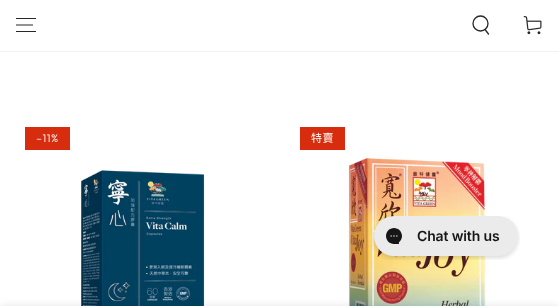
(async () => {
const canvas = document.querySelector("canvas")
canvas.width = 559
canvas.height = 306
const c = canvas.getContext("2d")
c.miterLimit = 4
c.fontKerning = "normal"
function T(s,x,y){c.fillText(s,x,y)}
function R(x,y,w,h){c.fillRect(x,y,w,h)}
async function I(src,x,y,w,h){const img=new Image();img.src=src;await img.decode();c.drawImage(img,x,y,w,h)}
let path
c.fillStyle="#fff"
R(0,0,559,306)
c.fillStyle="#f2f2f4"
R(0,51,559,1)
path = new Path2D("M16 31.5h20m-20-6.5h17m-17-6.5h20")
c.strokeStyle="#282828"
c.lineWidth=1.1
c.stroke(path)
c.beginPath()
c.arc(480.5,23.5,7.5,0,7)
c.lineWidth=1.3
c.stroke()
path = new Path2D("M485 29.5l3.5 4.5")
c.lineCap="round"
c.stroke(path)
await I("1.png",523,16,19,19)
c.fillStyle="#d72c0d"
R(25,127,45,23)
c.letterSpacing="0.5px"
c.font="300 11px Outfit"
c.fillStyle="#fff"
T("–11%",36,142)
await I("2.png",81,170,124,136)
c.fillStyle="#d72c0d"
R(300,127,45,23)
c.font="11px Noto Sans CJK TC"
c.fillStyle="#fff"
T("特賣",311,142)
await I("3.png",348,158,138,148)
await I("4.png",372,216,148,44)
c.fillStyle="#21232626"
c.filter="blur(4px)"
c.beginPath()
c.rect(0,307,559,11)
c.fill()
c.filter="none"
})()
